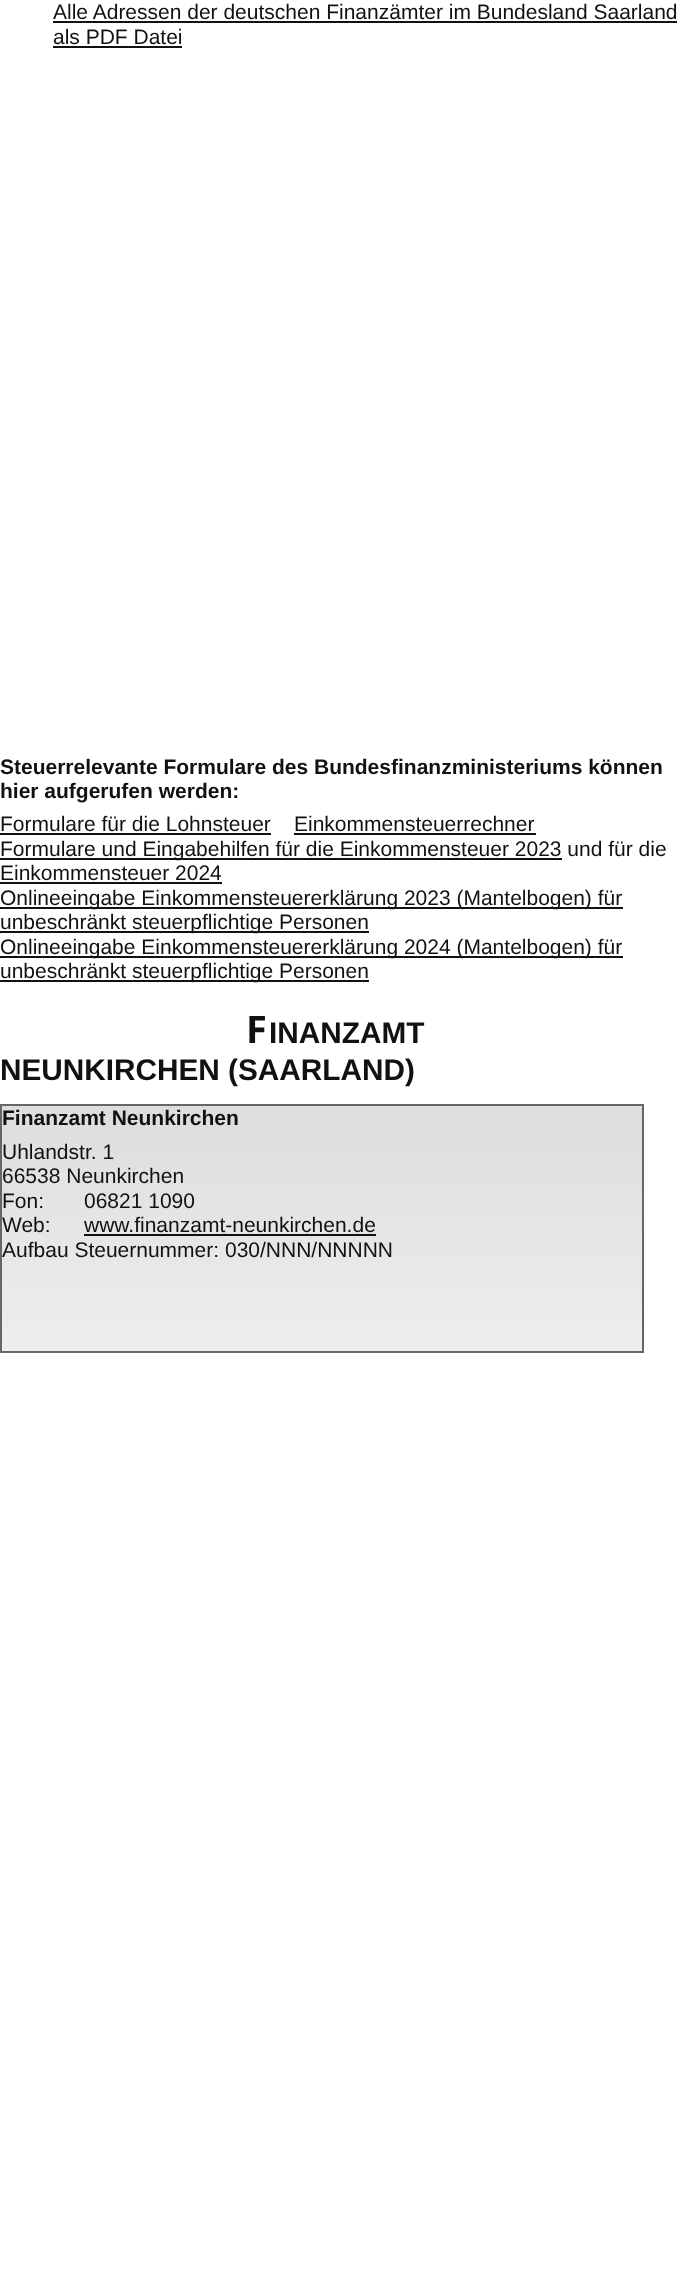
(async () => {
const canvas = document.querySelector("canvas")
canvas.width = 697
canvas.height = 2278
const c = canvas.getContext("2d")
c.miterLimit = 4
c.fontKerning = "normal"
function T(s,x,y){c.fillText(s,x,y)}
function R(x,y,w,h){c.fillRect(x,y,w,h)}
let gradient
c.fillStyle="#fff"
R(0,0,697,2278)
c.font="21px Liberation Sans"
c.fillStyle="#111"
T("Alle Adressen der deutschen Finanzämter im Bundesland Saarland",53,19)
R(53,21,624,2)
T("als PDF Datei",53,44)
R(53,46,129,2)
c.font="bold 21px Liberation Sans"
T("Steuerrelevante Formulare des Bundesfinanzministeriums können",0,774)
T("hier aufgerufen werden:",0,798)
c.font="21px Liberation Sans"
T("Formulare für die Lohnsteuer",0,831)
R(0,833,271,2)
T("Einkommensteuerrechner",294,831)
R(294,833,242,2)
R(0,858,562,2)
T("Formulare und Eingabehilfen für die Einkommensteuer 2023 und für die",0,856)
T("Einkommensteuer 2024",0,880)
R(0,882,222,2)
R(0,907,623,2)
T("Onlineeingabe Einkommensteuererklärung 2023 (Mantelbogen) für",0,905)
R(0,931,369,2)
T("unbeschränkt steuerpflichtige Personen",0,929)
R(0,956,623,2)
T("Onlineeingabe Einkommensteuererklärung 2024 (Mantelbogen) für",0,954)
R(0,980,369,2)
T("unbeschränkt steuerpflichtige Personen",0,978)
c.font="bold 38px Noto Sans"
T("F",246,1043)
c.font="bold 29.75px Liberation Sans"
T("INANZAMT",269,1043)
T("NEUNKIRCHEN (SAARLAND)",0,1080)
gradient = c.createLinearGradient(322,1106,322,1351)
gradient.addColorStop(0,"#ddd")
gradient.addColorStop(1,"#eee")
c.fillStyle = gradient
R(2,1106,640,245)
c.strokeStyle="#666"
c.lineWidth=2
c.strokeRect(1,1105,642,247)
c.font="bold 21px Liberation Sans"
c.fillStyle="#111"
T("Finanzamt Neunkirchen",2,1125)
c.font="21px Liberation Sans"
T("Uhlandstr. 1",2,1159)
T("66538 Neunkirchen",2,1183)
T("Fon:",2,1208)
T("06821 1090",84,1208)
T("Web:",2,1232)
T("www.finanzamt-neunkirchen.de",84,1232)
R(84,1234,292,2)
T("Aufbau Steuernummer: 030/NNN/NNNNN",2,1257)
})()
